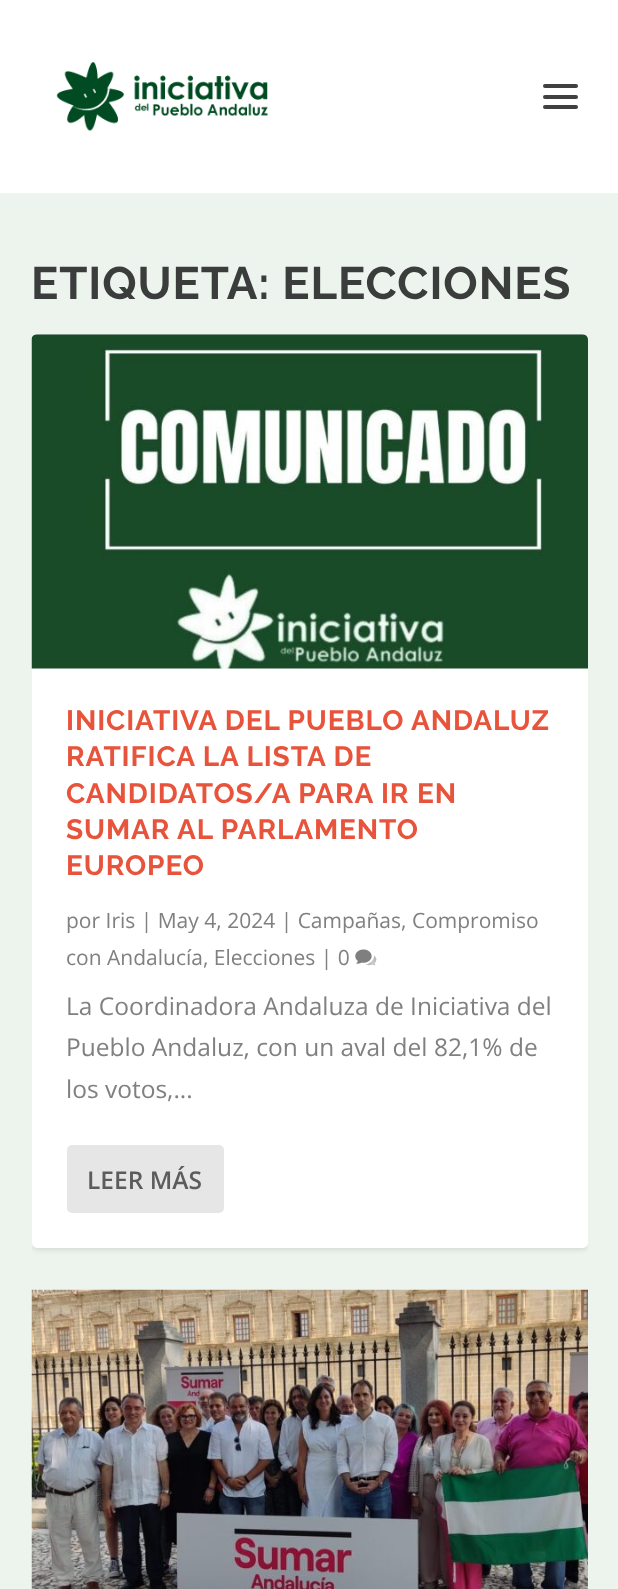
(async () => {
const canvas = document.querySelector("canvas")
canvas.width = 618
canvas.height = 1589
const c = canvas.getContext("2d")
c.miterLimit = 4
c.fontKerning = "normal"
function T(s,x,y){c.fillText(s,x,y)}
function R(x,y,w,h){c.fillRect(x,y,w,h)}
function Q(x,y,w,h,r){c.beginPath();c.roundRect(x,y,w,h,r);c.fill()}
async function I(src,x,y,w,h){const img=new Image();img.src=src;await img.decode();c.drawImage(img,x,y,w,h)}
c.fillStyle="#edf4ee"
R(0,0,618,1589)
c.fillStyle="#fff"
R(0,0,618,193)
await I("1.png",56,62,212,69)
c.fillStyle="#404040"
Q(543,84,35,4,2)
Q(543,95,35,4,2)
Q(543,105,35,4,2)
c.letterSpacing="0.9px"
c.font="bold 45.5px Raleway"
c.fillStyle="#3b3d3c"
T("ETIQUETA: ELECCIONES",31,299)
c.save()
c.beginPath()
c.roundRect(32,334,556,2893,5)
c.clip()
c.fillStyle="#0000001a"
c.filter="blur(2.5px)"
c.beginPath()
c.roundRect(32,336,556,914,5)
c.fill()
c.filter="none"
c.restore()
c.fillStyle="#fff"
Q(32,334,556,914,5)
await I("2.png",31,334,557,335)
c.font="bold 28px Raleway"
c.fillStyle="#e8533b"
T("INICIATIVA DEL PUEBLO ANDALUZ",66,730)
T("RATIFICA LA LISTA DE",66,766)
T("CANDIDATOS/A PARA IR EN",66,803)
T("SUMAR AL PARLAMENTO",66,839)
T("EUROPEO",66,875)
c.letterSpacing="0px"
c.font="21px Open Sans"
c.fillStyle="#808080"
T("por Iris | May 4, 2024 | Campañas, Compromiso",66,928)
T("con Andalucía, Elecciones | 0",66,965)
await I("3.png",355,949,22,17)
c.font="24.5px Open Sans"
T("La Coordinadora Andaluza de Iniciativa del",66,1015)
T("Pueblo Andaluz, con un aval del 82,1% de",66,1056)
T("los votos,...",66,1098)
c.fillStyle="#e6e6e6"
Q(67,1145,157,68,5)
c.font="600 24.5px Open Sans"
c.fillStyle="#5c5c5c"
T("LEER MÁS",87,1189)
await I("4.png",31,1289,557,300)
})()
